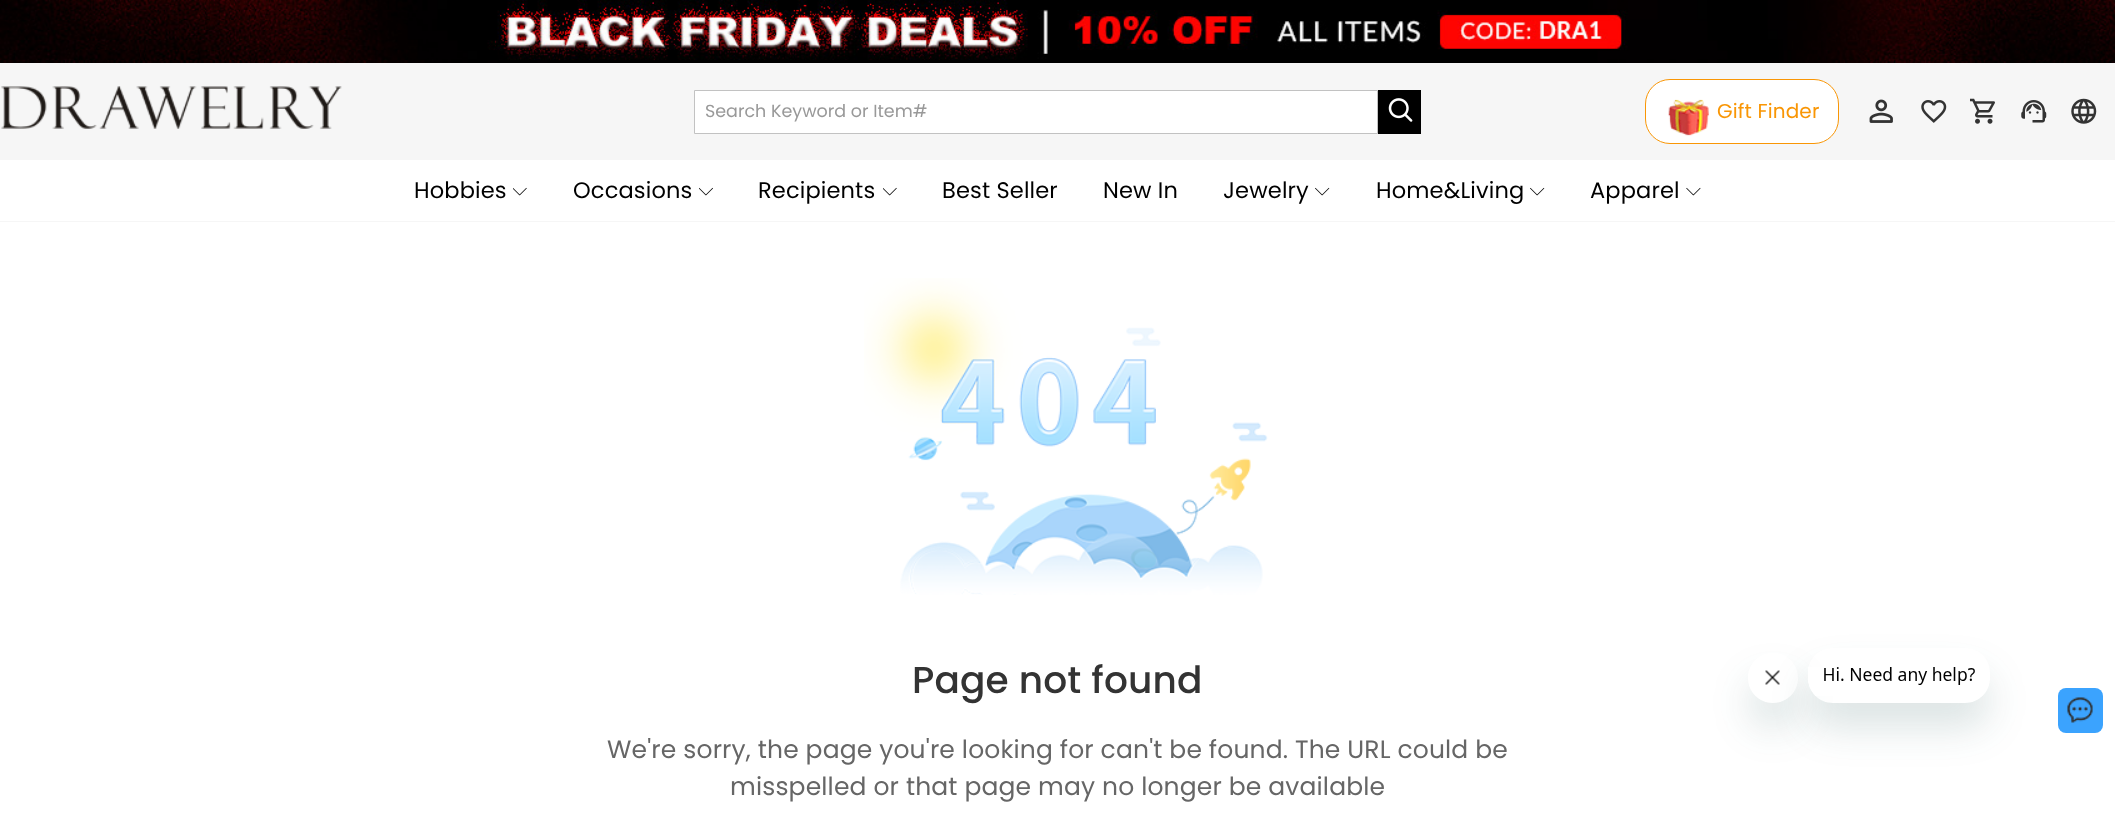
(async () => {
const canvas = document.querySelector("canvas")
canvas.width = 2115
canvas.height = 829
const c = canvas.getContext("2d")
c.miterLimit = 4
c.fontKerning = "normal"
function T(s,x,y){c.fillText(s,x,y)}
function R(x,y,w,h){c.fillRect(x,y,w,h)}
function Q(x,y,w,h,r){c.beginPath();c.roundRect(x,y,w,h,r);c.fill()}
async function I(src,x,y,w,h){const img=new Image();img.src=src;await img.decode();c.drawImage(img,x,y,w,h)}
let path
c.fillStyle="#fff"
R(0,0,2115,829)
await I("1.png",0,0,2115,63)
c.fillStyle="#f6f6f6"
R(0,63,2115,97)
await I("2.png",1,86,341,43)
c.fillStyle="#fff"
c.beginPath()
c.rect(694.5,90.5,683,43)
c.fill()
c.strokeStyle="#c2c2c2"
c.stroke()
c.font="17.5px Poppins"
c.fillStyle="#999"
T("Search Keyword or Item#",705,117)
c.fillStyle="#000"
R(1378,90,43,44)
await I("3.png",1388,98,25,24)
c.fillStyle="#fff"
c.beginPath()
c.roundRect(1645.5,79.5,193,64,24.5)
c.fill()
c.strokeStyle="#f99605"
c.stroke()
await I("4.png",1668,99,41,37)
c.letterSpacing="0.15px"
c.font="20px Poppins"
c.fillStyle="#f99605"
T("Gift Finder",1717,118)
await I("5.png",1869,99,24,24)
await I("6.png",1921,100,26,23)
await I("7.png",1970,98,25,26)
await I("8.png",2021,100,26,23)
await I("9.png",2071,98,26,26)
c.font="22.5px Poppins"
c.fillStyle="#000"
T("Hobbies",414,198)
await I("10.png",513,187,14,9)
T("Occasions",573,198)
await I("11.png",699,187,14,9)
T("Recipients",758,198)
await I("10.png",883,187,14,9)
T("Best Seller",942,198)
T("New In",1103,198)
T("Jewelry",1223,198)
await I("12.png",1315,187,15,9)
T("Home&Living",1376,198)
await I("12.png",1530,187,15,9)
T("Apparel",1590,198)
await I("13.png",1686,187,15,9)
c.fillStyle="#f6f6f6"
R(0,221,2115,1)
await I("14.png",864,278,404,317)
c.font="500 37.5px Poppins"
c.fillStyle="#333"
T("Page not found",912,693)
c.font="25px Poppins"
c.fillStyle="#666"
T("We're sorry, the page you're looking for can't be found. The URL could be",607,758)
T("misspelled or that page may no longer be available",730,795)
c.fillStyle="#3ba3fe"
Q(2058,688,45,45,8)
await I("15.png",2067,697,26,26)
c.save()
path = new Path2D("M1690 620h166v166h-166zm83 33c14 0 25 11 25 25c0 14-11 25-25 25c-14 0-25-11-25-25c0-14 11-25 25-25z")
c.clip(path,"evenodd")
c.fillStyle="#17494d26"
c.filter="blur(19px)"
c.beginPath()
c.roundRect(1748,678,50,50,25)
c.fill()
c.filter="none"
c.restore()
await I("17.png",1765,670,15,33)
c.save()
path = new Path2D("M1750 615h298v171h-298zm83 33h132c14 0 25 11 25 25v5c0 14-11 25-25 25h-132c-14 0-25-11-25-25v-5c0-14 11-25 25-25z")
c.clip(path,"evenodd")
c.fillStyle="#17494d26"
c.filter="blur(19px)"
c.beginPath()
c.roundRect(1808,673,182,55,25)
c.fill()
c.filter="none"
c.restore()
await I("16.png",1808,667,167,29)
})()
